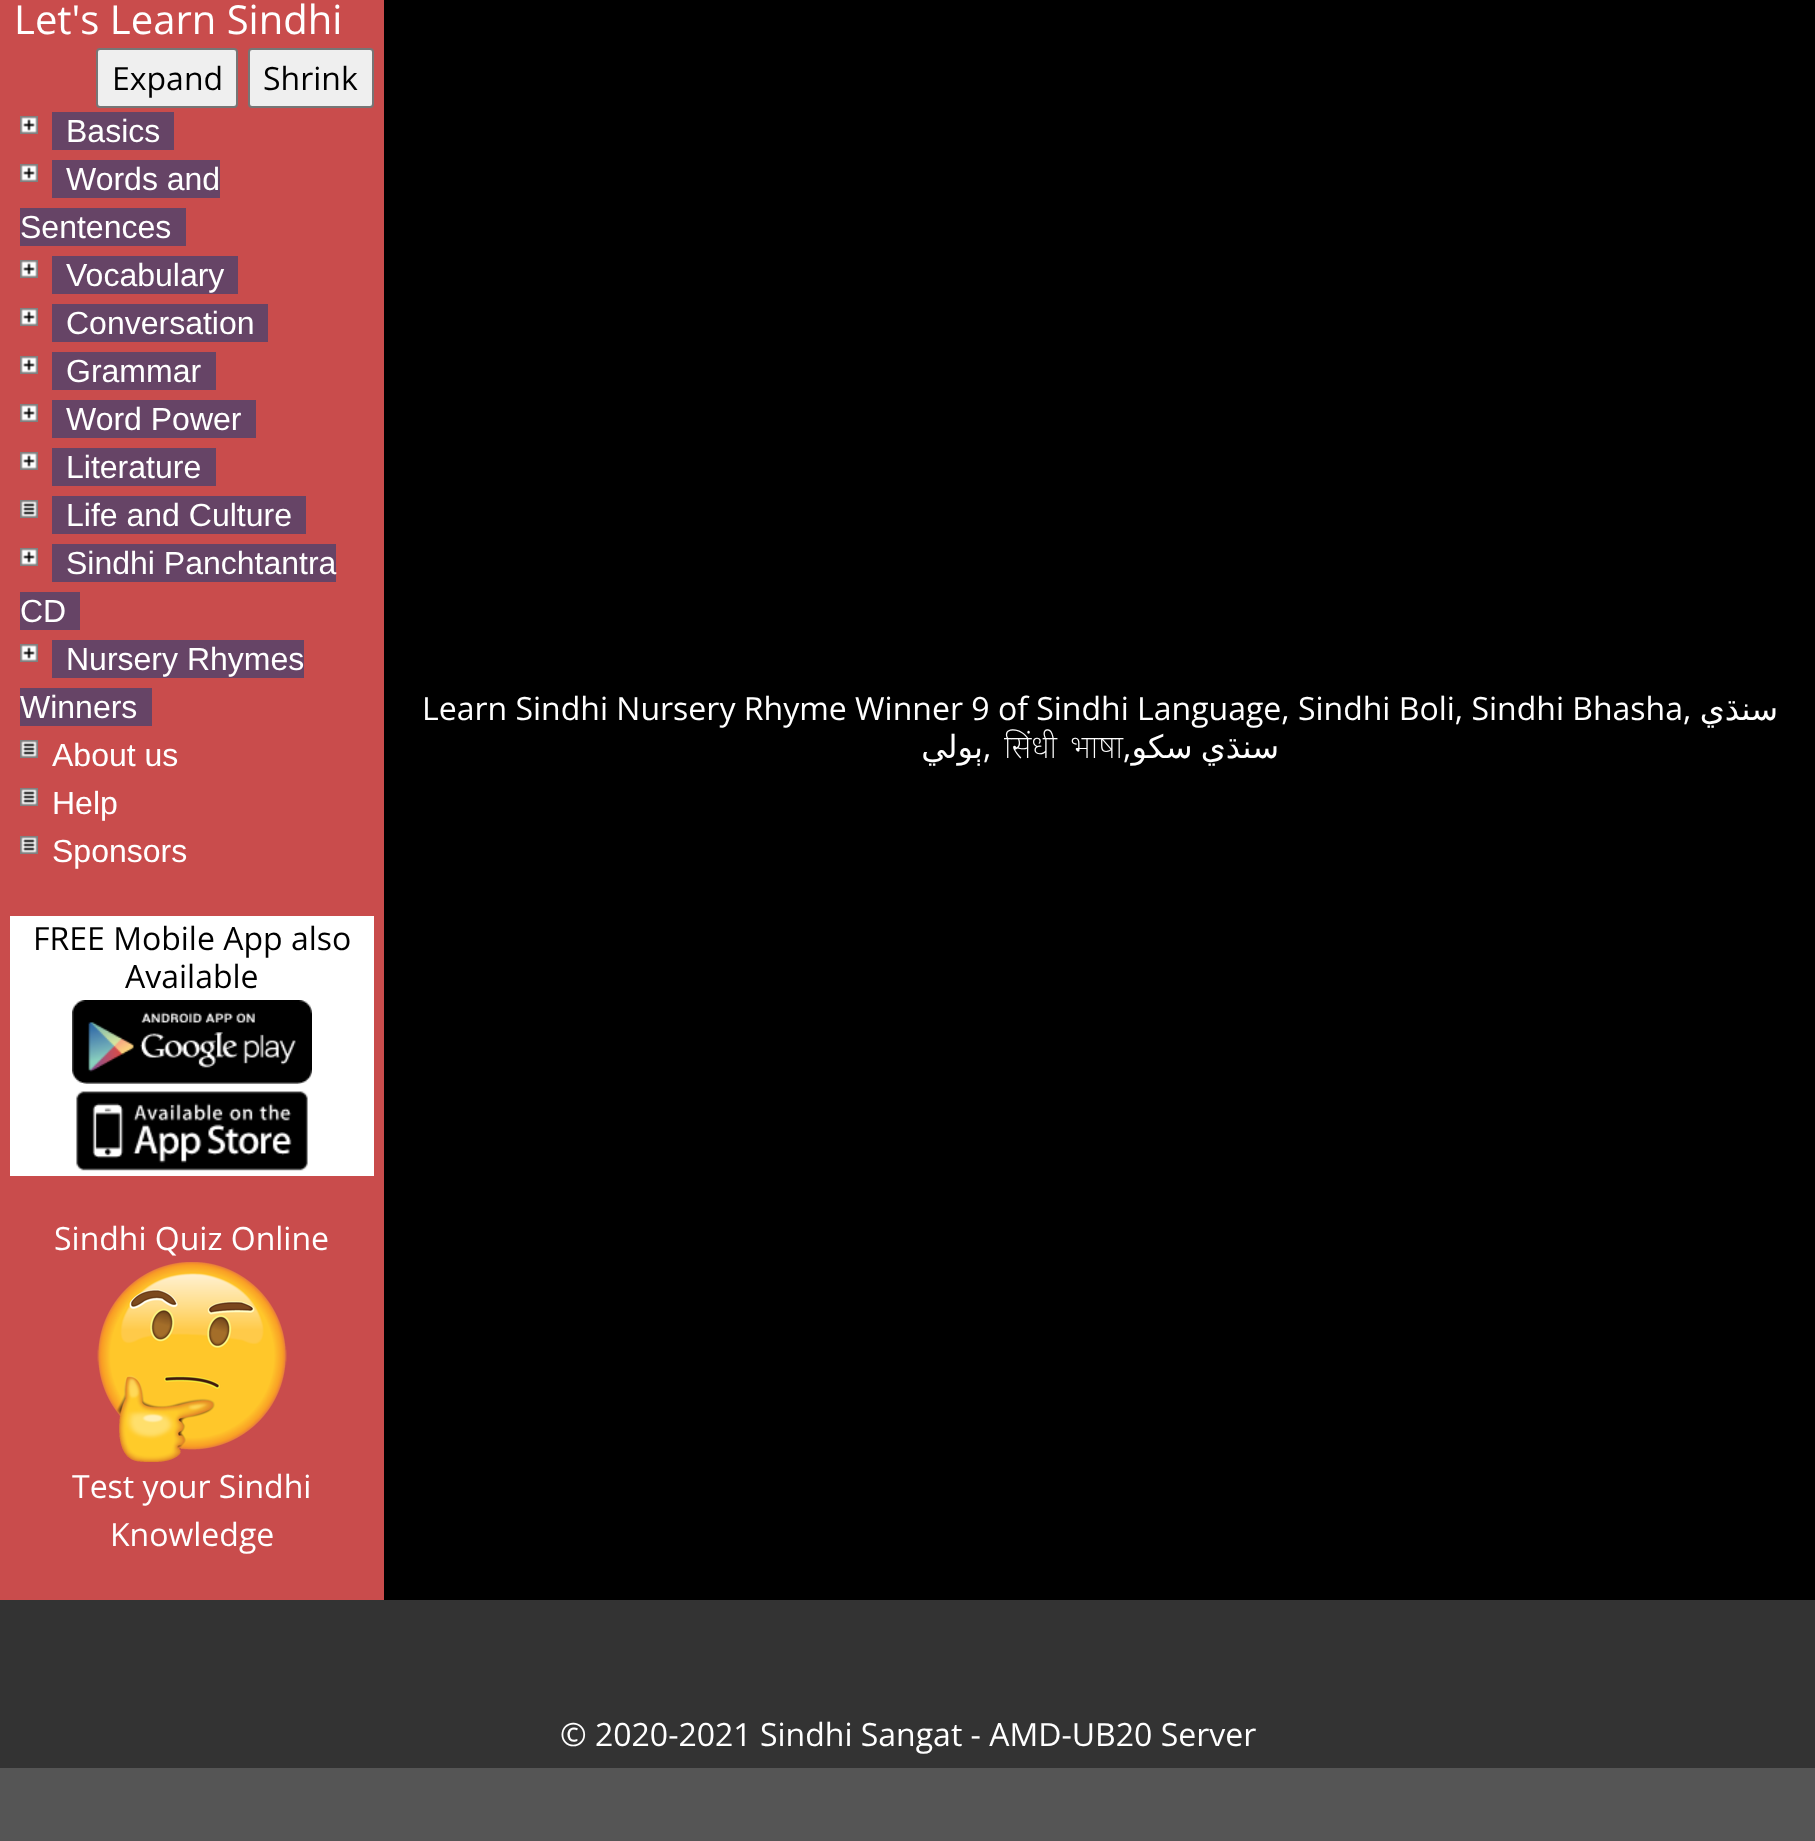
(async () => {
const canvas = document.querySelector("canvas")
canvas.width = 1815
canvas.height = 1841
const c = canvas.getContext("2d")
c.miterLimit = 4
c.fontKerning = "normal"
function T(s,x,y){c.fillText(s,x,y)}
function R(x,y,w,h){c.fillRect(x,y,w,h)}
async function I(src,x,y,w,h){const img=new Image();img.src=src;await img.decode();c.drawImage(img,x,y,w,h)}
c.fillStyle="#555"
R(0,0,1815,1841)
c.fillStyle="#000"
R(384,0,1431,1600)
c.fillStyle="#c94c4c"
R(0,0,384,1600)
c.font="40px Open Sans"
c.fillStyle="#fff"
T("Let's Learn Sindhi",14,34)
c.fillStyle="#efefef"
c.beginPath()
c.roundRect(97,49,140,58,3)
c.fill()
c.strokeStyle="#767676"
c.lineWidth=2
c.stroke()
c.font="32px Open Sans"
c.fillStyle="#000"
T("Expand",112,90)
c.fillStyle="#efefef"
c.beginPath()
c.roundRect(249,49,124,58,3)
c.fill()
c.stroke()
c.fillStyle="#000"
T("Shrink",263,90)
await I("1.png",20,116,18,18)
c.fillStyle="#646"
R(52,112,122,38)
c.font="32px Liberation Sans"
c.fillStyle="#fff"
T("Basics",66,142)
await I("1.png",20,164,18,18)
c.fillStyle="#646"
R(52,160,168,38)
c.fillStyle="#fff"
T("Words and",66,190)
c.fillStyle="#646"
R(20,208,166,38)
c.fillStyle="#fff"
T("Sentences",20,238)
await I("1.png",20,260,18,18)
c.fillStyle="#646"
R(52,256,186,38)
c.fillStyle="#fff"
T("Vocabulary",66,286)
await I("1.png",20,308,18,18)
c.fillStyle="#646"
R(52,304,216,38)
c.fillStyle="#fff"
T("Conversation",66,334)
await I("1.png",20,356,18,18)
c.fillStyle="#646"
R(52,352,164,38)
c.fillStyle="#fff"
T("Grammar",66,382)
await I("1.png",20,404,18,18)
c.fillStyle="#646"
R(52,400,204,38)
c.fillStyle="#fff"
T("Word Power",66,430)
await I("1.png",20,452,18,18)
c.fillStyle="#646"
R(52,448,164,38)
c.fillStyle="#fff"
T("Literature",66,478)
await I("2.png",20,500,18,18)
c.fillStyle="#646"
R(52,496,254,38)
c.fillStyle="#fff"
T("Life and Culture",66,526)
await I("1.png",20,548,18,18)
c.fillStyle="#646"
R(52,544,284,38)
c.fillStyle="#fff"
T("Sindhi Panchtantra",66,574)
c.fillStyle="#646"
R(20,592,60,38)
c.fillStyle="#fff"
T("CD",20,622)
await I("1.png",20,644,18,18)
c.fillStyle="#646"
R(52,640,252,38)
c.fillStyle="#fff"
T("Nursery Rhymes",66,670)
c.fillStyle="#646"
R(20,688,132,38)
c.fillStyle="#fff"
T("Winners",20,718)
await I("2.png",20,740,18,18)
T("About us",52,766)
await I("2.png",20,788,18,18)
T("Help",52,814)
await I("2.png",20,836,18,18)
T("Sponsors",52,862)
R(10,916,364,260)
c.font="32px Open Sans"
c.fillStyle="#000"
T("FREE Mobile App also",33,950)
T("Available",125,988)
await I("3.png",72,1000,240,84)
await I("4.png",76,1091,232,80)
c.fillStyle="#fff"
T("Sindhi Quiz Online",54,1250)
await I("5.png",97,1262,190,200)
T("Test your Sindhi",72,1498)
T("Knowledge",110,1546)
T("Learn Sindhi Nursery Rhyme Winner 9 of Sindhi Language, Sindhi Boli, Sindhi Bhasha,",422,720)
c.direction="rtl"
c.font="32px DejaVu Sans"
T("سنڌي",1778,720)
T("ٻولي",983,758)
c.direction="ltr"
c.font="32px Open Sans"
T(",",983,758)
c.wordSpacing="5px"
c.font="200 32px Noto Sans"
T("सिंधी भाषा",1004,758)
c.wordSpacing="0px"
c.font="32px Open Sans"
T(",",1123,758)
c.wordSpacing="-2px"
c.direction="rtl"
c.font="32px DejaVu Sans"
T("سنڌي سکو",1279,758)
c.fillStyle="#333"
R(0,1600,1815,168)
c.wordSpacing="0px"
c.direction="ltr"
c.font="32px Open Sans"
c.fillStyle="#fff"
T("© 2020-2021 Sindhi Sangat - AMD-UB20 Server",560,1746)
})()
